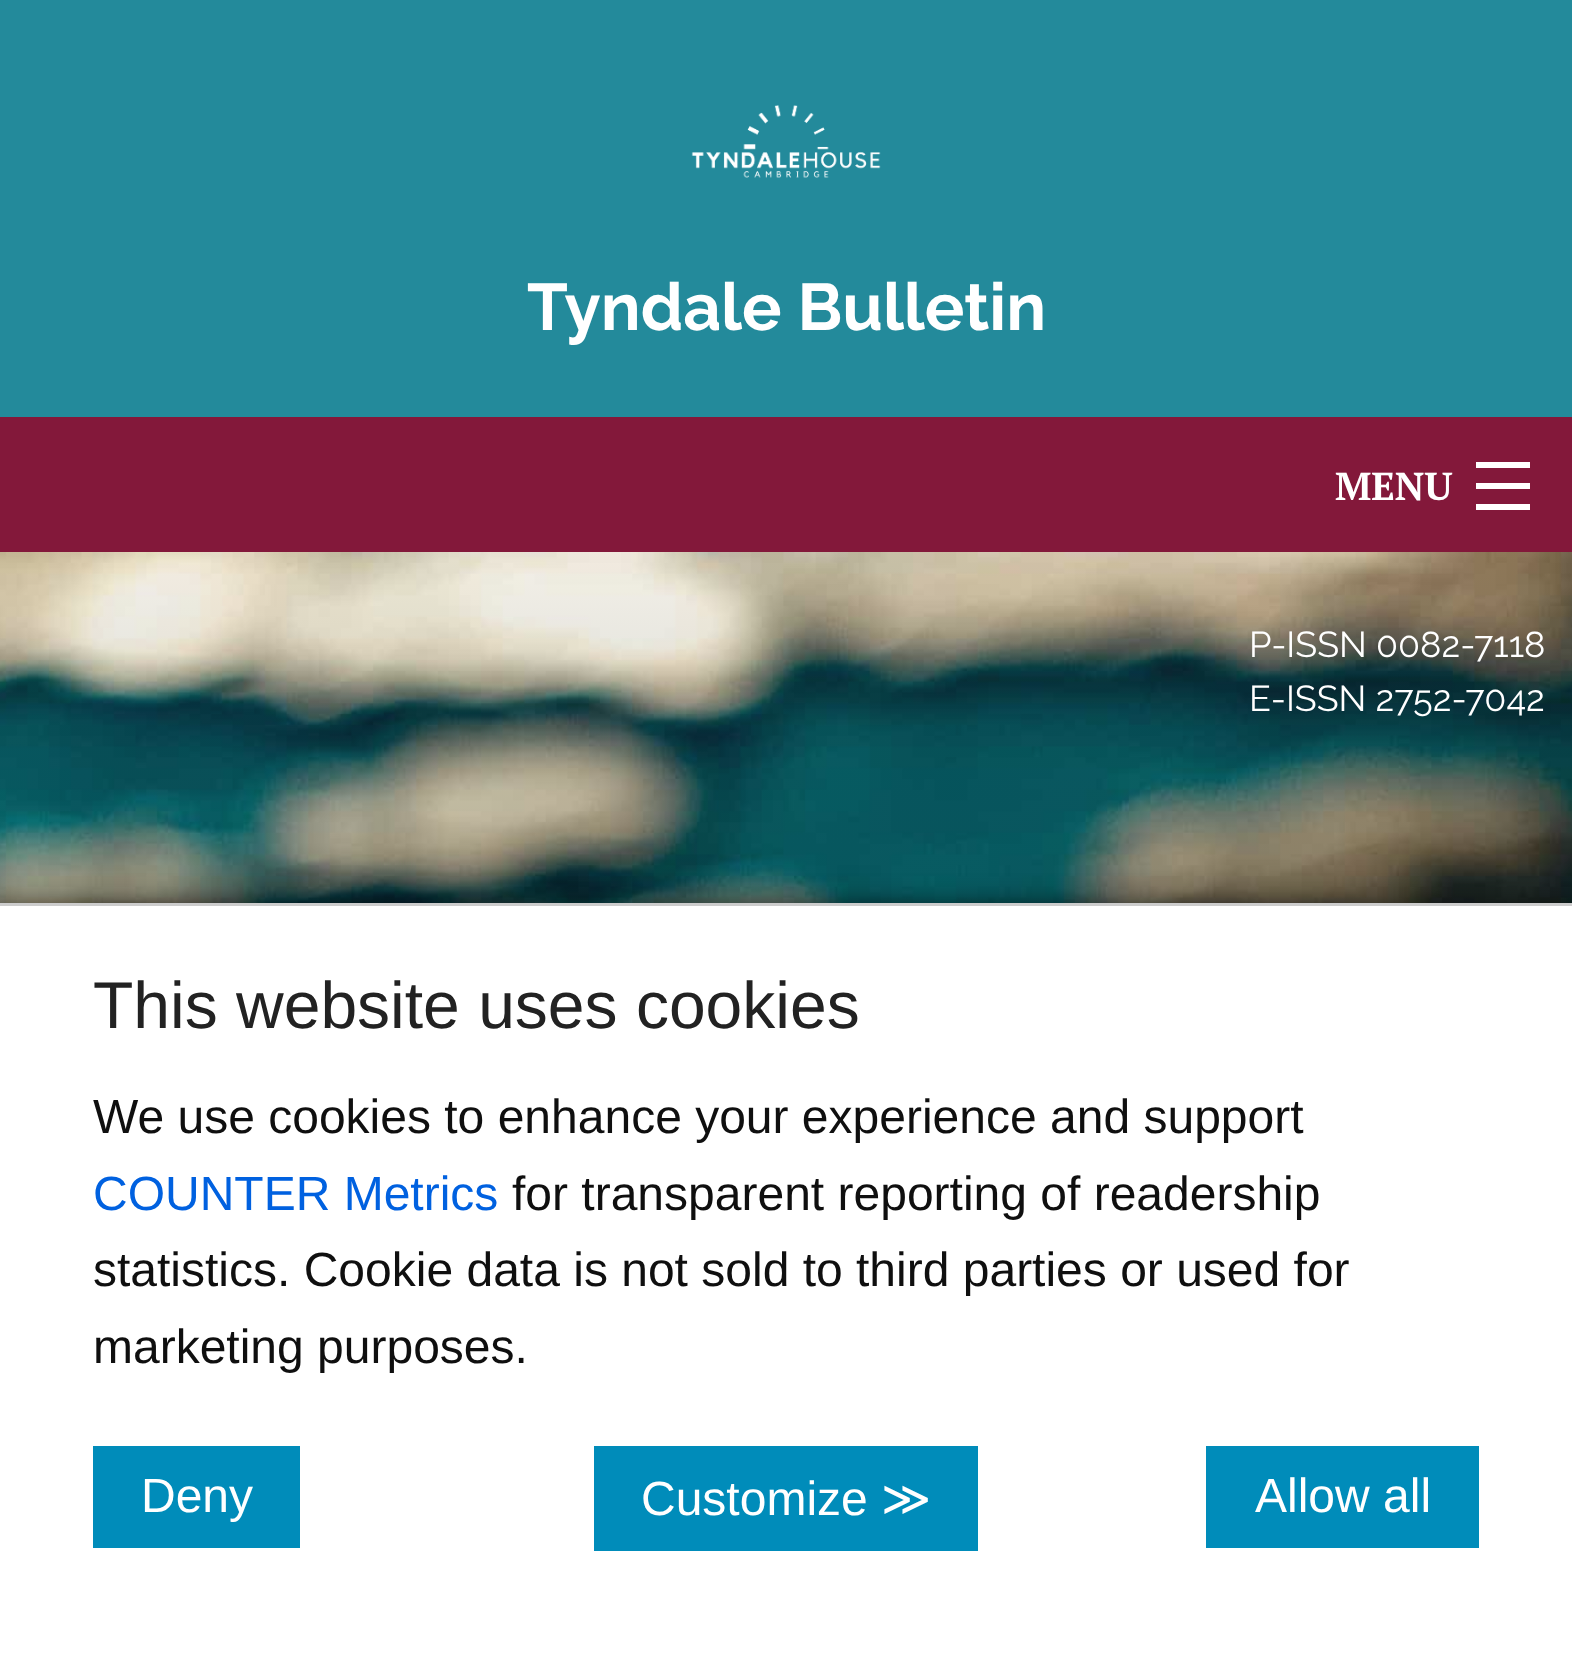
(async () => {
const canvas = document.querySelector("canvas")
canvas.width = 1572
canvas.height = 1657
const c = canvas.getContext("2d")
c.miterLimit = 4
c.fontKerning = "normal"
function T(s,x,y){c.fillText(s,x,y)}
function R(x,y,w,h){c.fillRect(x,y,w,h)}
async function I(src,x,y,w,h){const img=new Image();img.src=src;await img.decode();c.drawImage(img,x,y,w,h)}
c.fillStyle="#238a9b"
R(0,0,1572,1657)
await I("1.png",691,105,190,73)
c.font="bold 66px Raleway"
c.fillStyle="#fff"
T("Tyndale Bulletin",527,330)
c.fillStyle="#83183a"
R(0,417,1572,135)
c.font="bold 39px PT Serif"
c.fillStyle="#fff"
T("MENU",1335,500)
R(1476,504,54,6)
R(1476,483,54,6)
R(1476,462,54,6)
await I("2.png",0,552,1572,351)
c.font="36px Raleway"
T("P-ISSN 0082-7118",1249,657)
T("E-ISSN 2752-7042",1249,711)
c.fillStyle="#000"
c.filter="blur(16.5px)"
c.beginPath()
c.rect(-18,912,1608,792)
c.fill()
c.filter="none"
c.fillStyle="#fff"
R(0,906,1572,751)
c.fillStyle="#ccc"
R(0,903,1572,3)
c.font="66px Liberation Sans"
c.fillStyle="#222"
T("This website uses cookies",93,1028)
c.font="48px Liberation Sans"
c.fillStyle="#0f0f0f"
T("We use cookies to enhance your experience and support",93,1133)
c.fillStyle="#0061e0"
T("COUNTER Metrics",93,1210)
c.fillStyle="#0f0f0f"
T("for transparent reporting of readership",512,1210)
T("statistics. Cookie data is not sold to third parties or used for",93,1286)
T("marketing purposes.",93,1363)
c.fillStyle="#008cba"
R(93,1446,207,102)
c.fillStyle="#fff"
T("Deny",141,1512)
c.fillStyle="#008cba"
R(594,1446,384,105)
c.fillStyle="#fff"
T("Customize",641,1515)
c.font="48px DejaVu Sans"
T("≫",881,1515)
c.fillStyle="#008cba"
R(1206,1446,273,102)
c.font="48px Liberation Sans"
c.fillStyle="#fff"
T("Allow all",1255,1512)
})()
